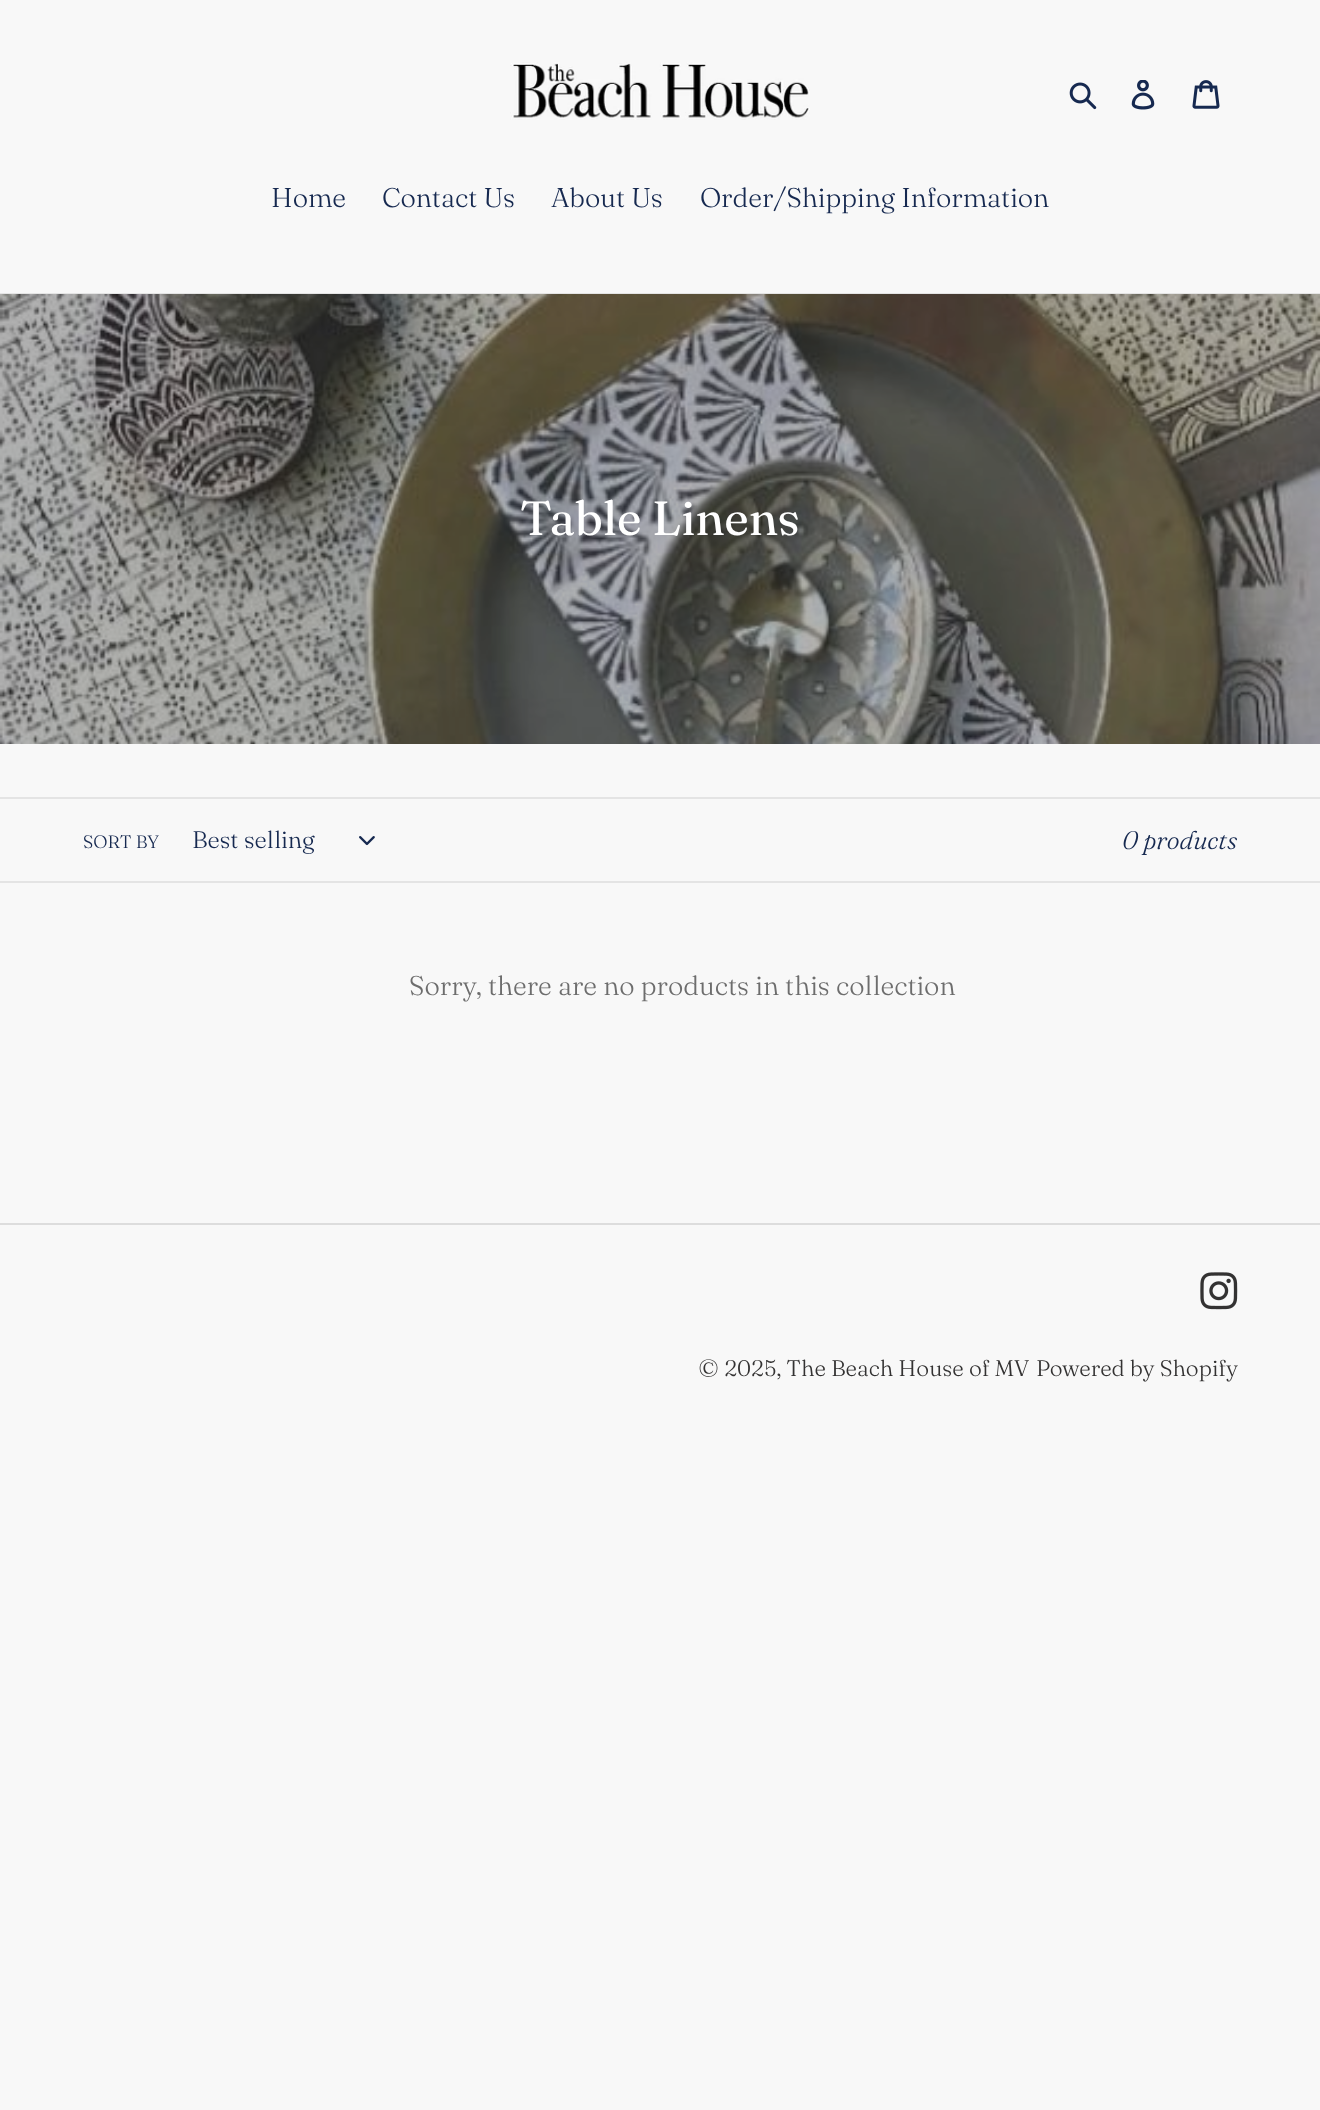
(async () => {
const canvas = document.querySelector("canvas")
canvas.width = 1320
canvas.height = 2110
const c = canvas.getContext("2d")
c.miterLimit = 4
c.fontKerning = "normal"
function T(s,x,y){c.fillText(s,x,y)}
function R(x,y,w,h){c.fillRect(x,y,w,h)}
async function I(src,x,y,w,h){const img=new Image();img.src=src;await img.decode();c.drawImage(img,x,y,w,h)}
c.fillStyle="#f8f8f8"
R(0,0,1320,2110)
await I("1.png",510,62,300,58)
await I("2.png",1069,82,28,28)
await I("3.png",1131,80,24,30)
await I("4.png",1192,80,28,29)
c.fillStyle="#e4e4e4"
R(0,293,1320,1)
c.font="300 27px Fraunces"
c.fillStyle="#162950"
T("Home",271,207)
T("Contact Us",382,207)
T("About Us",551,207)
T("Order/Shipping Information",700,207)
await I("5.png",0,294,1320,450)
c.font="48px Fraunces"
c.fillStyle="#fff"
T("Table Linens",520,535)
c.fillStyle="#e4e4e4"
R(0,797,1320,2)
R(0,881,1320,2)
c.font="300 18px 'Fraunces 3'"
c.fillStyle="#162950"
T("SORT BY",83,848)
c.font="300 24px 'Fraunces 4'"
T("Best selling",192,848)
await I("6.png",359,836,16,10)
c.font="italic 300 25.5px Fraunces"
T("0 products",1122,849)
c.font="300 27px Fraunces"
c.fillStyle="#6d6d6d"
T("Sorry, there are no products in this collection",409,995)
c.fillStyle="#ddd"
R(0,1223,1320,2)
await I("7.png",1200,1272,38,38)
c.font="300 22.5px 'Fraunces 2'"
c.fillStyle="#333232"
T("© 2025, The Beach House of MV",698,1376)
T("Powered by Shopify",1036,1376)
})()
